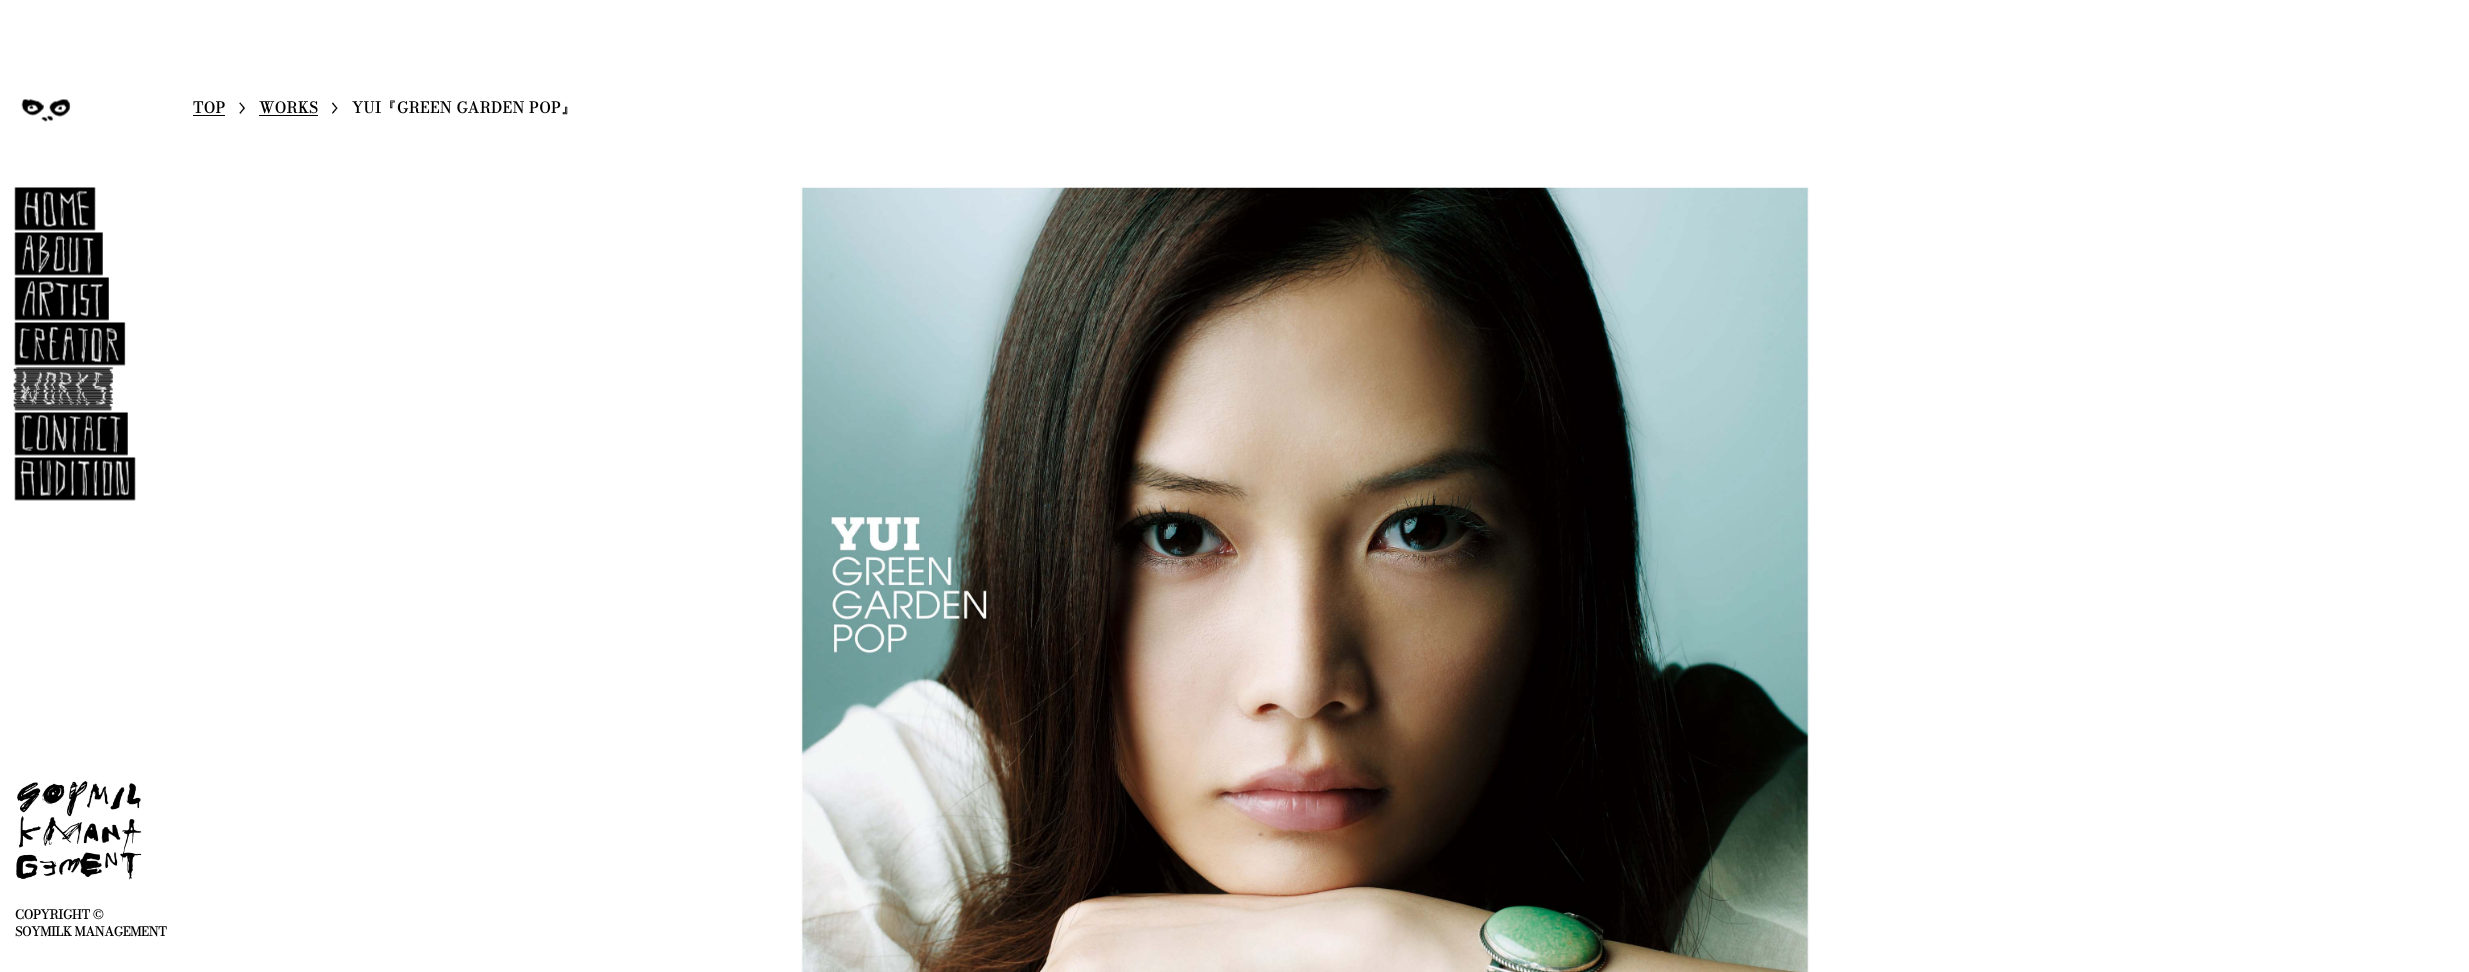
(async () => {
const canvas = document.querySelector("canvas")
canvas.width = 2469
canvas.height = 972
const c = canvas.getContext("2d")
c.miterLimit = 4
c.fontKerning = "normal"
function T(s,x,y){c.fillText(s,x,y)}
function R(x,y,w,h){c.fillRect(x,y,w,h)}
async function I(src,x,y,w,h){const img=new Image();img.src=src;await img.decode();c.drawImage(img,x,y,w,h)}
c.fillStyle="#fff"
R(0,0,2469,972)
c.letterSpacing="0.6px"
c.font="bold 15px Bodoni Moda"
c.fillStyle="#000"
T("TOP",193,113)
R(193,115,32,1)
await I("1.png",239,102,6,12)
T("WORKS",259,113)
R(259,115,59,1)
await I("2.png",332,102,6,12)
T("YUI",352,113)
c.font="bold 15px WenQuanYi Zen Hei"
T("『",381,113)
c.font="bold 15px Bodoni Moda"
T("GREEN GARDEN POP",397,113)
c.font="bold 15px WenQuanYi Zen Hei"
T("』",561,113)
await I("3.png",800,187,1010,785)
await I("4.png",21,99,50,23)
await I("5.png",14,187,82,44)
await I("6.png",14,232,89,44)
await I("7.png",14,277,95,44)
await I("8.png",14,322,112,44)
await I("9.png",15,367,98,3)
await I("10.png",13,368,98,3)
await I("11.png",13,369,98,3)
await I("12.png",14,370,98,3)
await I("13.png",14,371,98,3)
await I("14.png",15,373,98,3)
await I("15.png",15,374,98,3)
await I("16.png",15,375,98,3)
await I("17.png",15,377,98,3)
await I("18.png",14,378,98,3)
await I("19.png",15,379,98,3)
await I("20.png",15,381,98,3)
await I("21.png",14,382,98,3)
await I("22.png",13,383,98,3)
await I("23.png",13,384,98,3)
await I("24.png",14,386,98,3)
await I("25.png",14,387,98,3)
await I("26.png",15,388,98,3)
await I("27.png",13,389,98,3)
await I("28.png",13,390,98,3)
await I("29.png",16,392,97,2)
await I("30.png",14,393,98,3)
await I("31.png",14,394,98,3)
await I("32.png",14,396,98,3)
await I("33.png",14,396,98,3)
await I("34.png",15,398,98,3)
await I("35.png",13,399,98,3)
await I("36.png",14,401,98,3)
await I("37.png",15,401,98,3)
await I("38.png",13,403,98,3)
await I("39.png",13,404,98,3)
await I("40.png",14,405,98,3)
await I("41.png",14,407,98,3)
await I("42.png",14,408,98,3)
await I("43.png",14,412,114,44)
await I("44.png",14,457,122,44)
await I("45.png",16,781,126,99)
c.letterSpacing="-0.25px"
c.font="bold 12.5px 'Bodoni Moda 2'"
T("COPYRIGHT ©",15,919)
T("SOYMILK MANAGEMENT",15,936)
})()
